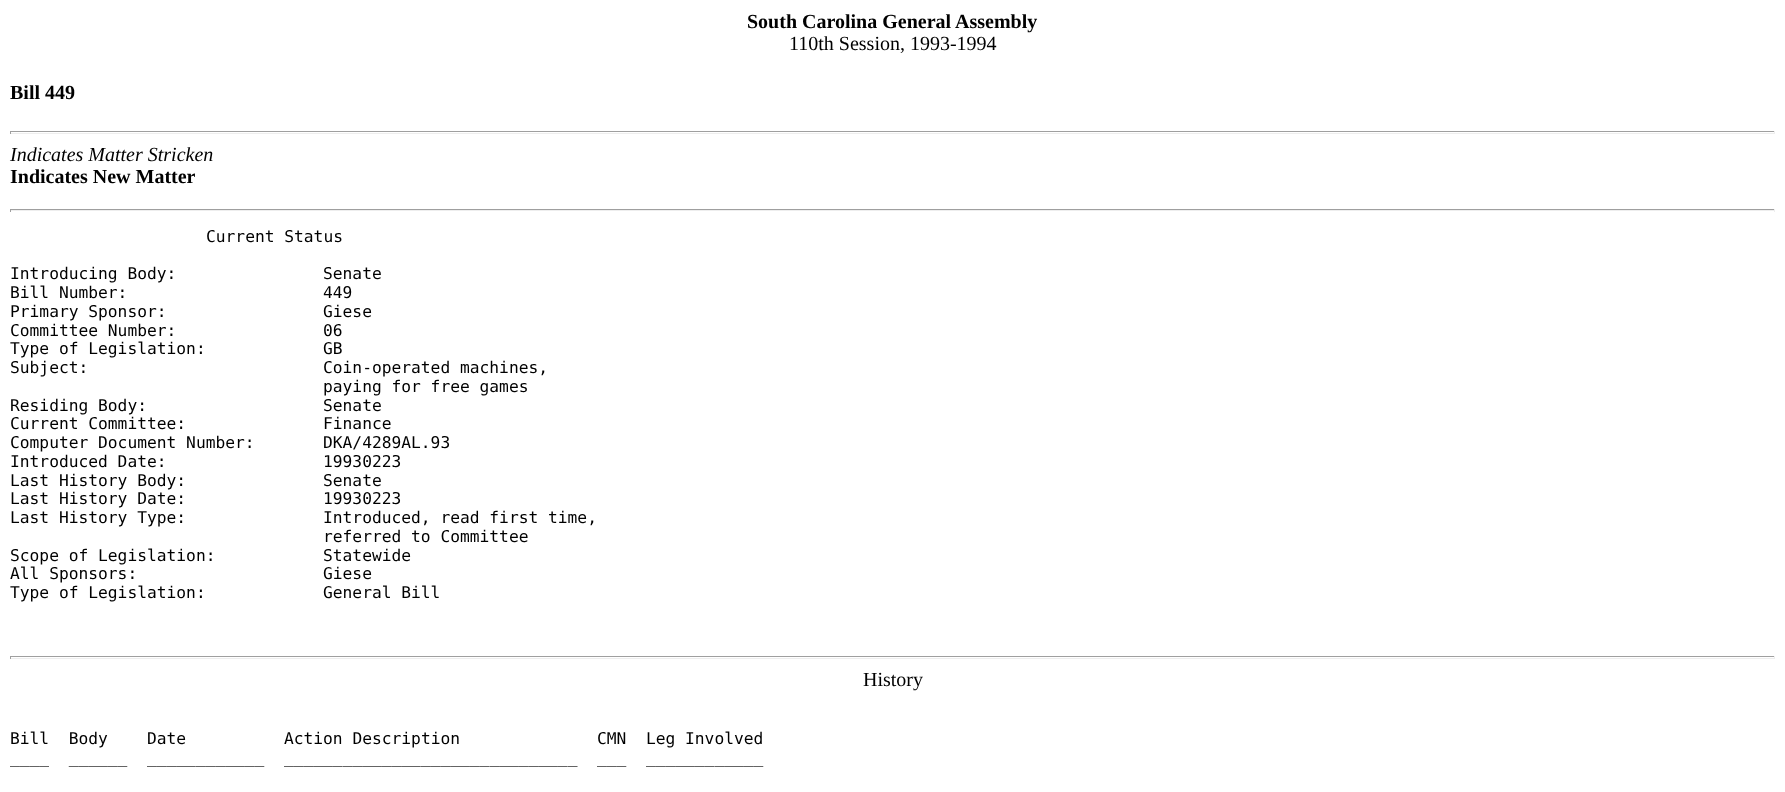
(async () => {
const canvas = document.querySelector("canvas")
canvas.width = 1785
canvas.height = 792
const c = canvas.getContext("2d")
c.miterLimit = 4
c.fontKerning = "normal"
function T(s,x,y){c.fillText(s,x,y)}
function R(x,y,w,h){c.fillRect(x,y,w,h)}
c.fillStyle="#fff"
R(0,0,1785,792)
c.font="bold 20px Liberation Serif"
c.fillStyle="#000"
T("South Carolina General Assembly",747,28)
c.font="20px Liberation Serif"
T("110th Session, 1993-1994",789,50)
c.font="bold 20px Liberation Serif"
T("Bill 449",10,99)
c.fillStyle="#9f9f9f"
R(10,131,1765,1)
c.fillStyle="#eee"
R(1774,131,1,3)
R(10,133,1765,1)
c.fillStyle="#9f9f9f"
R(10,131,1,3)
c.font="italic 20px Liberation Serif"
c.fillStyle="#000"
T("Indicates Matter Stricken",10,161)
c.font="bold 20px Liberation Serif"
T("Indicates New Matter",10,183)
c.fillStyle="#9f9f9f"
R(10,209,1765,1)
c.fillStyle="#eee"
R(1774,209,1,3)
R(10,210,1765,1)
c.fillStyle="#9f9f9f"
R(10,209,1,3)
c.font="16.25px DejaVu Sans Mono"
c.fillStyle="#000"
T("Current Status",206,242)
T("Introducing Body:",10,279)
T("Senate",323,279)
T("Bill Number:",10,298)
T("449",323,298)
T("Primary Sponsor:",10,317)
T("Giese",323,317)
T("Committee Number:",10,336)
T("06",323,336)
T("Type of Legislation:",10,354)
T("GB",323,354)
T("Subject:",10,373)
T("Coin-operated machines,",323,373)
T("paying for free games",323,392)
T("Residing Body:",10,411)
T("Senate",323,411)
T("Current Committee:",10,429)
T("Finance",323,429)
T("Computer Document Number:",10,448)
T("DKA/4289AL.93",323,448)
T("Introduced Date:",10,467)
T("19930223",323,467)
T("Last History Body:",10,486)
T("Senate",323,486)
T("Last History Date:",10,504)
T("19930223",323,504)
T("Last History Type:",10,523)
T("Introduced, read first time,",323,523)
T("referred to Committee",323,542)
T("Scope of Legislation:",10,561)
T("Statewide",323,561)
T("All Sponsors:",10,579)
T("Giese",323,579)
T("Type of Legislation:",10,598)
T("General Bill",323,598)
c.fillStyle="#9f9f9f"
R(10,656,1765,1)
c.fillStyle="#eee"
R(1774,656,1,3)
R(10,658,1765,1)
c.fillStyle="#9f9f9f"
R(10,656,1,3)
c.font="20px Liberation Serif"
c.fillStyle="#000"
T("History",863,686)
c.font="16.25px DejaVu Sans Mono"
T("Bill  Body    Date          Action Description              CMN  Leg Involved",10,744)
T("____  ______  ____________  ______________________________  ___  ____________",10,763)
})()
